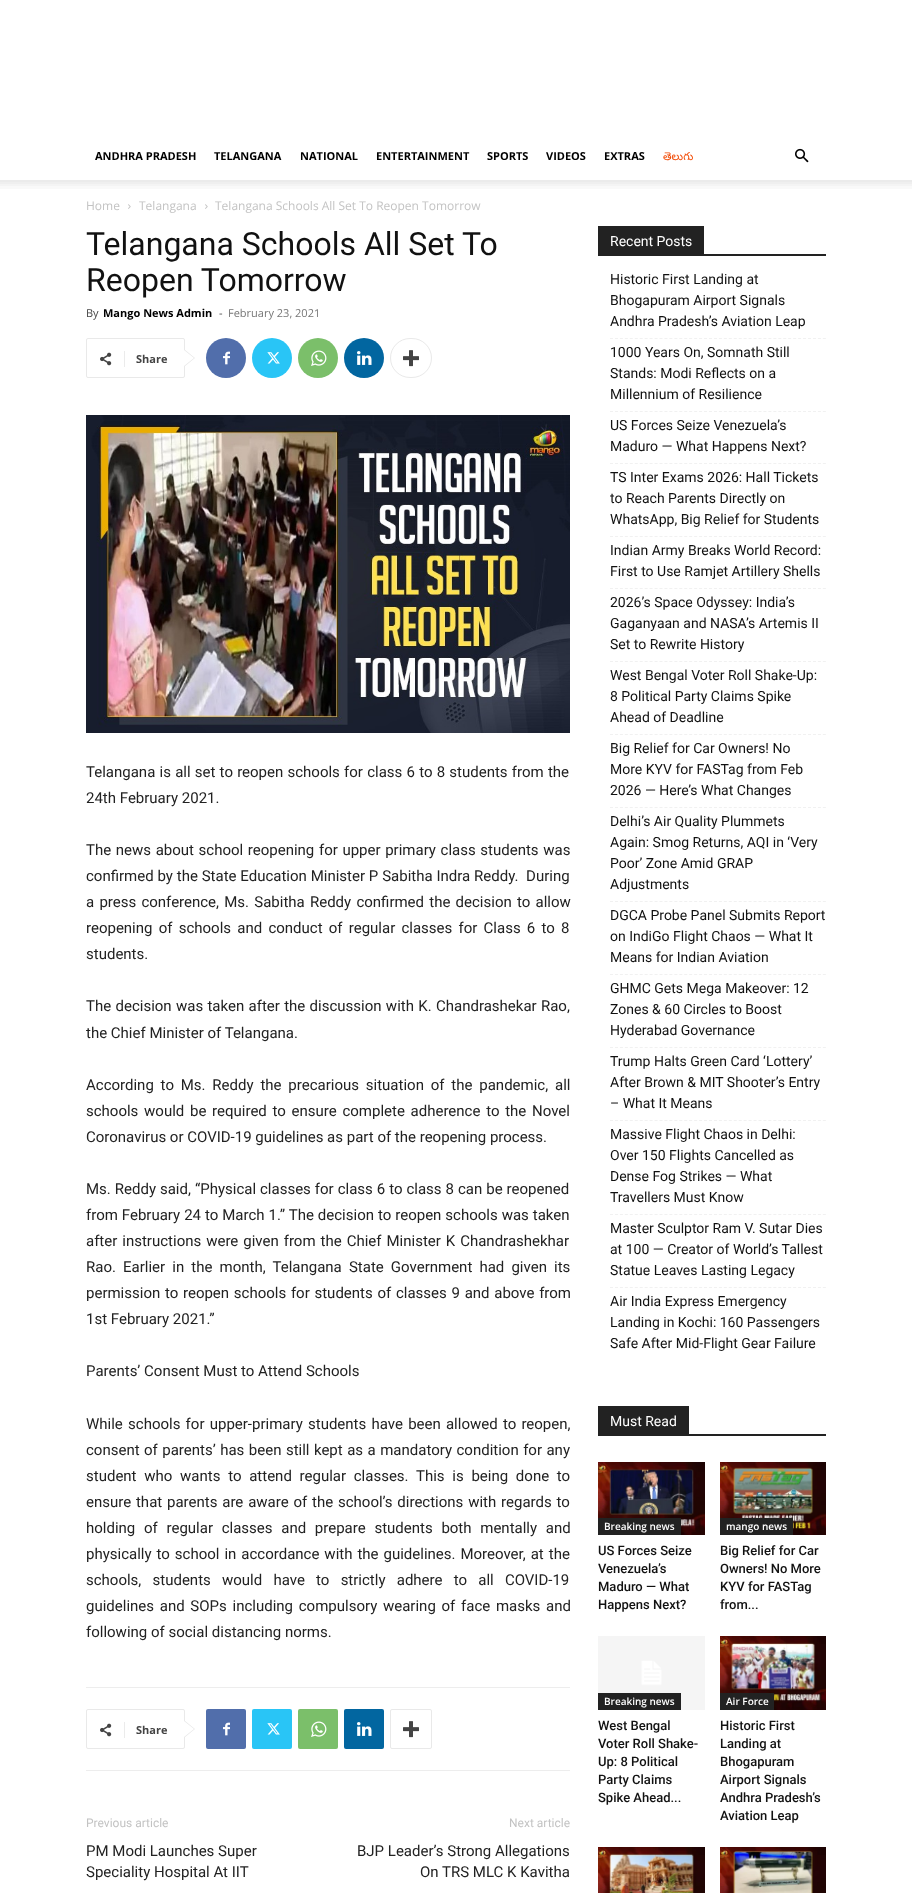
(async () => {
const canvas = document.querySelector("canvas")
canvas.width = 912
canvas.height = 1893
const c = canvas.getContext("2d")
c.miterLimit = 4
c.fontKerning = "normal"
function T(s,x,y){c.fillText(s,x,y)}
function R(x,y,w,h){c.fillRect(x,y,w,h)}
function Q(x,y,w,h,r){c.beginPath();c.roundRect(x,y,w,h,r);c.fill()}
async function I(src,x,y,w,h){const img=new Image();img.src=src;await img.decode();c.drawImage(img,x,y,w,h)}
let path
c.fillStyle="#fff"
R(0,0,912,1893)
c.font="bold 11px Open Sans"
c.fillStyle="#000"
T("ANDHRA PRADESH",95,160)
T("TELANGANA",214,160)
T("NATIONAL",300,160)
T("ENTERTAINMENT",376,160)
T("SPORTS",487,160)
T("VIDEOS",546,160)
T("EXTRAS",604,160)
c.font="11px Noto Sans Telugu"
c.fillStyle="#f24700"
T("తెలుగు",663,160)
await I("1.png",795,148,14,15)
await I("2.png",0,180,912,9)
c.font="12px Open Sans"
c.fillStyle="#c3c3c3"
T("Home",86,210)
await I("3.png",128,204,3,5)
T("Telangana",139,210)
await I("3.png",205,204,3,5)
T("Telangana Schools All Set To Reopen Tomorrow",215,210)
c.font="32px Roboto"
c.fillStyle="#111"
T("Telangana Schools All Set To",86,255)
T("Reopen Tomorrow",86,291)
c.font="11px Open Sans"
c.fillStyle="#444"
T("By",86,317)
c.font="bold 11px Open Sans"
c.fillStyle="#000"
T("Mango News Admin",103,317)
c.font="11px Open Sans"
c.fillStyle="#444"
T("-",219,317)
c.fillStyle="#767676"
T("February 23, 2021",228,317)
c.beginPath()
c.roundRect(86.5,338.5,98,39,1.5)
c.strokeStyle="#e9e9e9"
c.stroke()
c.fillStyle="#e9e9e9"
path = new Path2D("M184 367v-18l11 9z")
c.fill(path)
await I("4.png",100,352,12,14)
c.fillStyle="#ebebeb"
R(124,351,1,16)
c.font="bold 11px Open Sans"
c.fillStyle="#444"
T("Share",136,363)
c.fillStyle="#fff"
path = new Path2D("M184 366v-16l10 8z")
c.fill(path)
c.fillStyle="#516eab"
c.beginPath()
c.arc(226,358,20,0,7)
c.fill()
await I("5.png",223,351,7,14)
c.fillStyle="#29c5f6"
c.beginPath()
c.arc(272,358,20,0,7)
c.fill()
await I("6.png",267,352,13,12)
c.fillStyle="#7bbf6a"
c.beginPath()
c.arc(318,358,20,0,7)
c.fill()
await I("7.png",311,350,16,16)
c.fillStyle="#0266a0"
c.beginPath()
c.arc(364,358,20,0,7)
c.fill()
await I("8.png",357,351,15,14)
c.beginPath()
c.roundRect(390.5,338.5,41,39,19.5)
c.stroke()
await I("9.png",403,350,16,17)
await I("10.png",86,415,484,318)
c.wordSpacing="0.5px"
c.font="15px Roboto"
c.fillStyle="#222"
T("Telangana is all set to reopen schools for class 6 to 8 students from the",86,777)
c.wordSpacing="0px"
T("24th February 2021.",86,803)
c.wordSpacing="0.9px"
T("The news about school reopening for upper primary class students was",86,855)
c.wordSpacing="0.1px"
T("confirmed by the State Education Minister P Sabitha Indra Reddy.  During",86,881)
c.wordSpacing="1.5px"
T("a press conference, Ms. Sabitha Reddy confirmed the decision to allow",86,907)
c.wordSpacing="2.5px"
T("reopening of schools and conduct of regular classes for Class 6 to 8",86,933)
c.wordSpacing="0px"
T("students.",86,959)
c.wordSpacing="0.6px"
T("The decision was taken after the discussion with K. Chandrashekar Rao,",86,1011)
c.wordSpacing="0px"
T("the Chief Minister of Telangana.",86,1038)
c.wordSpacing="3.1px"
T("According to Ms. Reddy the precarious situation of the pandemic, all",86,1090)
c.wordSpacing="2px"
T("schools would be required to ensure complete adherence to the Novel",86,1116)
c.wordSpacing="0px"
T("Coronavirus or COVID-19 guidelines as part of the reopening process.",86,1142)
c.wordSpacing="0.25px"
T("Ms. Reddy said, “Physical classes for class 6 to class 8 can be reopened",86,1194)
T("from February 24 to March 1.” The decision to reopen schools was taken",86,1220)
c.wordSpacing="1.25px"
T("after instructions were given from the Chief Minister K Chandrashekhar",86,1246)
c.wordSpacing="3.4px"
T("Rao. Earlier in the month, Telangana State Government had given its",86,1272)
c.wordSpacing="1px"
T("permission to reopen schools for students of classes 9 and above from",86,1298)
c.wordSpacing="0px"
T("1st February 2021.”",86,1324)
T("Parents’ Consent Must to Attend Schools",86,1376)
c.wordSpacing="1.5px"
T("While schools for upper-primary students have been allowed to reopen,",86,1429)
c.wordSpacing="0.75px"
T("consent of parents’ has been still kept as a mandatory condition for any",86,1455)
c.wordSpacing="4px"
T("student who wants to attend regular classes. This is being done to",86,1481)
c.wordSpacing="1.1px"
T("ensure that parents are aware of the school’s directions with regards to",86,1507)
c.wordSpacing="5px"
T("holding of regular classes and prepare students both mentally and",86,1533)
c.wordSpacing="1.25px"
T("physically to school in accordance with the guidelines. Moreover, at the",86,1559)
c.wordSpacing="7.5px"
T("schools, students would have to strictly adhere to all COVID-19",86,1585)
c.wordSpacing="2px"
T("guidelines and SOPs including compulsory wearing of face masks and",86,1611)
c.wordSpacing="0px"
T("following of social distancing norms.",86,1637)
c.fillStyle="#ededed"
R(86,1687,484,1)
R(86,1770,484,1)
c.beginPath()
c.roundRect(86.5,1709.5,98,39,1.5)
c.stroke()
c.fillStyle="#e9e9e9"
path = new Path2D("M184 1738v-18l11 9z")
c.fill(path)
await I("4.png",100,1723,12,14)
c.fillStyle="#ebebeb"
R(124,1722,1,16)
c.font="bold 11px Open Sans"
c.fillStyle="#444"
T("Share",136,1734)
c.fillStyle="#fff"
path = new Path2D("M184 1737v-16l10 8z")
c.fill(path)
c.fillStyle="#516eab"
Q(206,1709,40,40,2)
await I("5.png",223,1722,7,14)
c.fillStyle="#29c5f6"
Q(252,1709,40,40,2)
await I("6.png",267,1723,13,12)
c.fillStyle="#7bbf6a"
Q(298,1709,40,40,2)
await I("7.png",311,1721,16,16)
c.fillStyle="#0266a0"
Q(344,1709,40,40,2)
await I("8.png",357,1722,15,14)
c.beginPath()
c.roundRect(390.5,1709.5,41,39,1.5)
c.stroke()
await I("9.png",403,1721,16,17)
c.font="12px Roboto"
c.fillStyle="#c3c3c3"
T("Previous article",86,1827)
c.font="15px Roboto"
c.fillStyle="#222"
T("PM Modi Launches Super",86,1856)
T("Speciality Hospital At IIT",86,1877)
c.font="12px Roboto"
c.fillStyle="#c3c3c3"
T("Next article",509,1827)
c.font="15px Roboto"
c.fillStyle="#222"
T("BJP Leader’s Strong Allegations",357,1856)
T("On TRS MLC K Kavitha",420,1877)
R(598,254,228,2)
R(598,226,106,28)
c.font="14px Roboto"
c.fillStyle="#fff"
T("Recent Posts",610,246)
path = new Path2D("M610 338.5h216")
c.strokeStyle="#f1f1f1"
c.setLineDash([3,1.95])
c.stroke(path)
c.fillStyle="#111"
T("Historic First Landing at",610,284)
T("Bhogapuram Airport Signals",610,305)
T("Andhra Pradesh’s Aviation Leap",610,326)
path = new Path2D("M610 411.5h216")
c.stroke(path)
T("1000 Years On, Somnath Still",610,357)
T("Stands: Modi Reflects on a",610,378)
T("Millennium of Resilience",610,399)
path = new Path2D("M610 463.5h216")
c.stroke(path)
T("US Forces Seize Venezuela’s",610,430)
T("Maduro — What Happens Next?",610,451)
path = new Path2D("M610 536.5h216")
c.stroke(path)
T("TS Inter Exams 2026: Hall Tickets",610,482)
T("to Reach Parents Directly on",610,503)
T("WhatsApp, Big Relief for Students",610,524)
path = new Path2D("M610 588.5h216")
c.stroke(path)
T("Indian Army Breaks World Record:",610,555)
T("First to Use Ramjet Artillery Shells",610,576)
path = new Path2D("M610 661.5h216")
c.stroke(path)
T("2026’s Space Odyssey: India’s",610,607)
T("Gaganyaan and NASA’s Artemis II",610,628)
T("Set to Rewrite History",610,649)
path = new Path2D("M610 734.5h216")
c.stroke(path)
T("West Bengal Voter Roll Shake-Up:",610,680)
T("8 Political Party Claims Spike",610,701)
T("Ahead of Deadline",610,722)
path = new Path2D("M610 807.5h216")
c.stroke(path)
T("Big Relief for Car Owners! No",610,753)
T("More KYV for FASTag from Feb",610,774)
T("2026 — Here’s What Changes",610,795)
path = new Path2D("M610 901.5h216")
c.stroke(path)
T("Delhi’s Air Quality Plummets",610,826)
T("Again: Smog Returns, AQI in ‘Very",610,847)
T("Poor’ Zone Amid GRAP",610,868)
T("Adjustments",610,889)
path = new Path2D("M610 974.5h216")
c.stroke(path)
T("DGCA Probe Panel Submits Report",610,920)
T("on IndiGo Flight Chaos — What It",610,941)
T("Means for Indian Aviation",610,962)
path = new Path2D("M610 1047.5h216")
c.stroke(path)
T("GHMC Gets Mega Makeover: 12",610,993)
T("Zones & 60 Circles to Boost",610,1014)
T("Hyderabad Governance",610,1035)
path = new Path2D("M610 1120.5h216")
c.stroke(path)
T("Trump Halts Green Card ‘Lottery’",610,1066)
T("After Brown & MIT Shooter’s Entry",610,1087)
T("– What It Means",610,1108)
path = new Path2D("M610 1214.5h216")
c.stroke(path)
T("Massive Flight Chaos in Delhi:",610,1139)
T("Over 150 Flights Cancelled as",610,1160)
T("Dense Fog Strikes — What",610,1181)
T("Travellers Must Know",610,1202)
path = new Path2D("M610 1287.5h216")
c.stroke(path)
T("Master Sculptor Ram V. Sutar Dies",610,1233)
T("at 100 — Creator of World’s Tallest",610,1254)
T("Statue Leaves Lasting Legacy",610,1275)
T("Air India Express Emergency",610,1306)
T("Landing in Kochi: 160 Passengers",610,1327)
T("Safe After Mid-Flight Gear Failure",610,1348)
c.fillStyle="#222"
R(598,1434,228,2)
R(598,1406,91,28)
c.fillStyle="#fff"
T("Must Read",610,1426)
await I("11.png",598,1462,107,73)
c.fillStyle="#222"
R(598,1518,83,17)
c.font="600 10px Open Sans"
c.fillStyle="#fff"
T("Breaking news",604,1530)
c.font="500 13px Roboto"
c.fillStyle="#111"
T("US Forces Seize",598,1555)
T("Venezuela’s",598,1573)
T("Maduro — What",598,1591)
T("Happens Next?",598,1609)
await I("12.png",720,1462,106,73)
c.fillStyle="#222"
R(720,1518,73,17)
c.font="600 10px Open Sans"
c.fillStyle="#fff"
T("mango news",726,1530)
c.font="500 13px Roboto"
c.fillStyle="#111"
T("Big Relief for Car",720,1555)
T("Owners! No More",720,1573)
T("KYV for FASTag",720,1591)
T("from...",720,1609)
await I("13.png",598,1636,107,74)
c.fillStyle="#222"
R(598,1693,83,17)
c.font="600 10px Open Sans"
c.fillStyle="#fff"
T("Breaking news",604,1705)
c.font="500 13px Roboto"
c.fillStyle="#111"
T("West Bengal",598,1730)
T("Voter Roll Shake-",598,1748)
T("Up: 8 Political",598,1766)
T("Party Claims",598,1784)
T("Spike Ahead...",598,1802)
await I("14.png",720,1636,106,74)
c.fillStyle="#222"
R(720,1693,54,17)
c.font="600 10px Open Sans"
c.fillStyle="#fff"
T("Air Force",726,1705)
c.font="500 13px Roboto"
c.fillStyle="#111"
T("Historic First",720,1730)
T("Landing at",720,1748)
T("Bhogapuram",720,1766)
T("Airport Signals",720,1784)
T("Andhra Pradesh’s",720,1802)
T("Aviation Leap",720,1820)
await I("15.png",598,1847,107,46)
await I("16.png",720,1847,106,46)
})()
